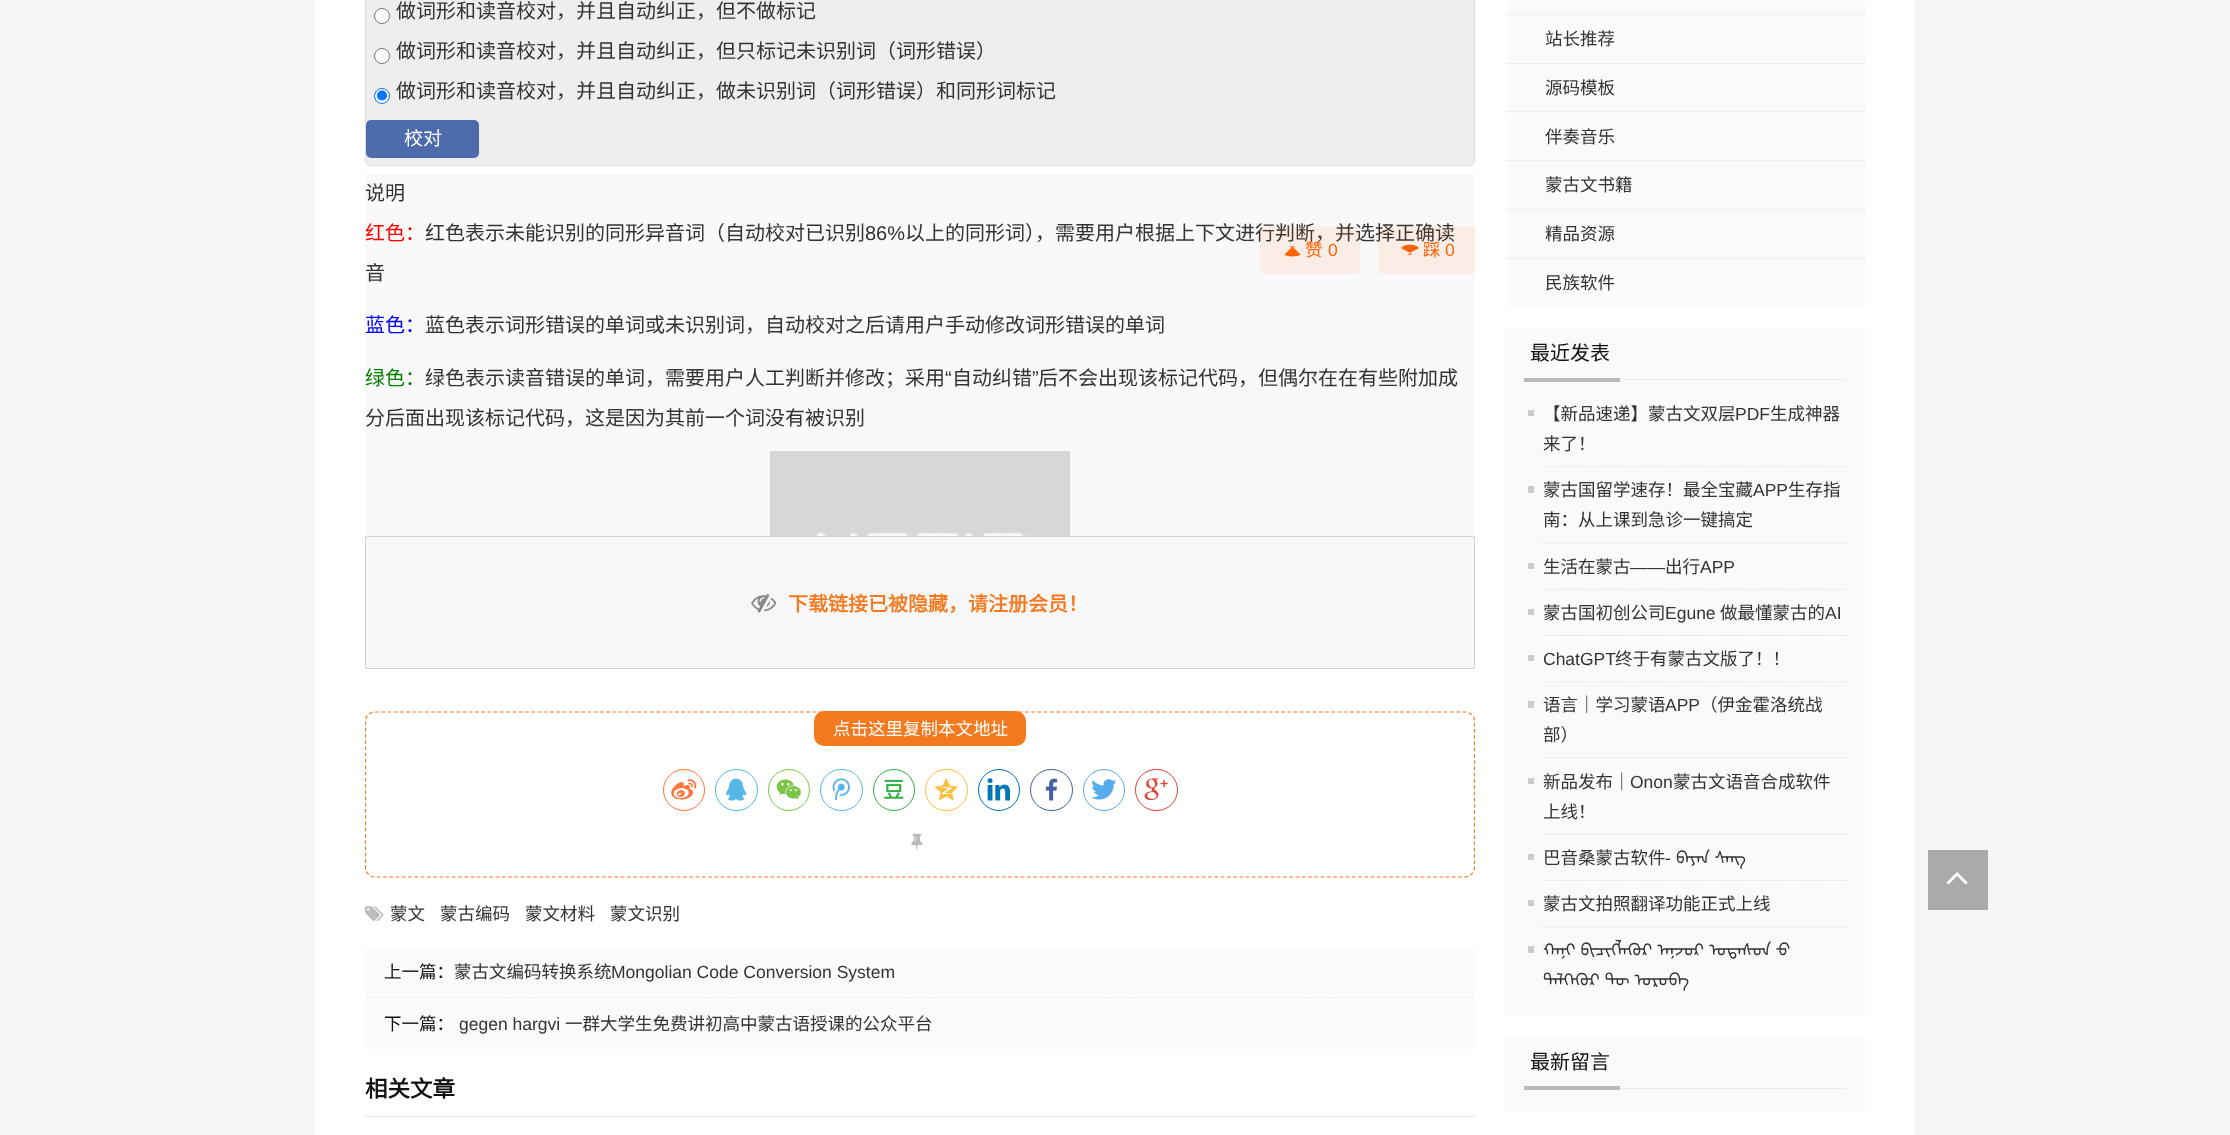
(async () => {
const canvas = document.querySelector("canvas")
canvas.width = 2230
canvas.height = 1135
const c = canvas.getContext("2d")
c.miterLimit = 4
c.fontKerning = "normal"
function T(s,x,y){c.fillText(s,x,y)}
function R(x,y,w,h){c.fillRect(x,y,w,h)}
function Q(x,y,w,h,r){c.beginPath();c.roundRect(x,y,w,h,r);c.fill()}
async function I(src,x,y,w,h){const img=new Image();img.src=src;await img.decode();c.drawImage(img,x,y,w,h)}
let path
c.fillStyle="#f5f5f5"
R(0,0,2230,1135)
c.fillStyle="#fff"
R(315,0,1600,1135)
c.fillStyle="#eee"
c.beginPath()
c.roundRect(365.5,-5.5,1109,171,4.5)
c.fill()
c.strokeStyle="#dedede"
c.stroke()
c.fillStyle="#fff"
c.beginPath()
c.arc(382,16,7.5,0,7)
c.fill()
c.strokeStyle="#767676"
c.stroke()
c.font="20px Noto Sans CJK SC"
c.fillStyle="#333"
T("做词形和读音校对，并且自动纠正，但不做标记",396,18)
c.fillStyle="#fff"
c.beginPath()
c.arc(382,56,7.5,0,7)
c.fill()
c.stroke()
c.fillStyle="#333"
T("做词形和读音校对，并且自动纠正，但只标记未识别词（词形错误）",396,58)
c.fillStyle="#fff"
c.beginPath()
c.arc(382,96,7.5,0,7)
c.fill()
c.strokeStyle="#0075ff"
c.stroke()
c.fillStyle="#0075ff"
c.beginPath()
c.arc(382,95.5,5,0,7)
c.fill()
c.fillStyle="#333"
T("做词形和读音校对，并且自动纠正，做未识别词（词形错误）和同形词标记",396,98)
c.fillStyle="#4e6bac"
Q(366,120,113,38,5)
c.font="19px Noto Sans CJK SC"
c.fillStyle="#fff"
T("校对",404,145)
c.fillStyle="#f9f9f9"
R(365,174,1110,362)
c.font="20px Noto Sans CJK SC"
c.fillStyle="#333"
T("说明",365,200)
c.fillStyle="#f00"
T("红色：",365,240)
c.fillStyle="#333"
T("红色表示未能识别的同形异音词（自动校对已识别",425,240)
c.font="20px Liberation Sans"
T("86%",865,240)
c.font="20px Noto Sans CJK SC"
T("以上的同形词），需要用户根据上下文进行判断，并选择正确读",905,240)
T("音",365,280)
c.fillStyle="#00f"
T("蓝色：",365,332)
c.fillStyle="#333"
T("蓝色表示词形错误的单词或未识别词，自动校对之后请用户手动修改词形错误的单词",425,332)
c.fillStyle="#008000"
T("绿色：",365,385)
c.fillStyle="#333"
T("绿色表示读音错误的单词，需要用户人工判断并修改；采用",425,385)
c.font="20px Liberation Sans"
T("“",945,385)
c.font="20px Noto Sans CJK SC"
T("自动纠错",952,385)
c.font="20px Liberation Sans"
T("”",1032,385)
c.font="20px Noto Sans CJK SC"
T("后不会出现该标记代码，但偶尔在在有些附加成",1038,385)
T("分后面出现该标记代码，这是因为其前一个词没有被识别",365,425)
await I("1.png",770,451,300,85)
c.fillStyle="#ff630a14"
Q(1260,226,100,48,6)
path = new Path2D("M1297 251c-.5 .5-8.5 .5-9 0")
c.strokeStyle="#ff630a"
c.lineWidth=10
c.stroke(path)
c.font="17.5px Noto Sans CJK SC"
c.fillStyle="#ff630a"
T("赞",1305,256)
c.font="17.5px Liberation Sans"
T("0",1328,256)
c.save()
c.beginPath()
c.rect(365,0,1110,536)
c.clip()
c.fillStyle="#ff630a14"
Q(1378,226,100,48,6)
c.restore()
path = new Path2D("M1405.5 250.5c.5-1 8.5-1 9 0")
c.stroke(path)
c.font="17.5px Noto Sans CJK SC"
T("踩",1423,256)
c.font="17.5px Liberation Sans"
T("0",1445,256)
c.fillStyle="#f7f7f7"
c.beginPath()
c.rect(365.5,536.5,1109,132)
c.fill()
c.strokeStyle="#d3d3d3"
c.lineWidth=1
c.stroke()
await I("2.png",751,593,26,20)
c.font="bold 20px Noto Sans CJK SC"
c.fillStyle="#f4791f"
T("下载链接已被隐藏，请注册会员！",788,611)
c.save()
c.beginPath()
c.rect(365,0,1110,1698)
c.clip()
path = new Path2D("M375 712h1090c5 0 9.5 4 9.5 9v146.5c0 5-4.5 9.5-9.5 9.5h-1090c-5 0-9.5-4.5-9.5-9.5v-146.5c0-5 4.5-9 9.5-9z")
c.strokeStyle="#f4791f"
c.lineWidth=1.2
c.setLineDash([3.75,2.5])
c.stroke(path)
c.restore()
Q(814,711,212,35,10)
c.font="17.5px Noto Sans CJK SC"
c.fillStyle="#fff"
T("点击这里复制本文地址",833,735)
c.beginPath()
c.arc(684,790,20.5,0,7)
c.strokeStyle="#ff763b"
c.stroke()
await I("3.png",671,779,26,21)
c.beginPath()
c.roundRect(715.5,769.5,42,41,20.5)
c.strokeStyle="#56b6e7"
c.stroke()
await I("4.png",726,778,20,23)
c.beginPath()
c.arc(789,790,20.5,0,7)
c.strokeStyle="#7bc549"
c.stroke()
await I("5.png",776,779,25,21)
c.beginPath()
c.roundRect(820.5,769.5,42,41,20.5)
c.strokeStyle="#56b6e7"
c.stroke()
await I("6.png",832,778,18,23)
c.beginPath()
c.arc(894,790,20.5,0,7)
c.strokeStyle="#33b045"
c.stroke()
await I("7.png",884,779,20,20)
c.beginPath()
c.roundRect(925.5,769.5,42,41,20.5)
c.strokeStyle="#fdbe3d"
c.stroke()
await I("8.png",934,778,24,23)
c.beginPath()
c.arc(999,790,20.5,0,7)
c.strokeStyle="#0077b5"
c.stroke()
await I("9.png",987,778,23,23)
c.beginPath()
c.roundRect(1030.5,769.5,42,41,20.5)
c.strokeStyle="#44619d"
c.stroke()
await I("10.png",1045,778,13,23)
c.beginPath()
c.arc(1104,790,20.5,0,7)
c.strokeStyle="#55acee"
c.stroke()
await I("11.png",1091,779,26,21)
c.beginPath()
c.roundRect(1135.5,769.5,42,41,20.5)
c.strokeStyle="#db4437"
c.stroke()
await I("12.png",1144,778,24,23)
await I("13.png",911,833,12,17)
await I("14.png",365,906,19,15)
c.fillStyle="#333"
T("蒙文",390,920)
T("蒙古编码",440,920)
T("蒙文材料",525,920)
T("蒙文识别",610,920)
c.fillStyle="#fafafa"
R(365,948,1110,101)
c.fillStyle="#fff"
R(365,999,1110,1)
path = new Path2D("M365 998h1110")
c.strokeStyle="#eee"
c.lineWidth=1.2
c.setLineDash([3.75,2.5])
c.stroke(path)
c.fillStyle="#111"
T("上一篇：",384,978)
c.fillStyle="#333"
T("蒙古文编码转换系统",454,978)
c.font="17.5px Liberation Sans"
T("Mongolian Code Conversion System",611,978)
c.font="17.5px Noto Sans CJK SC"
c.fillStyle="#111"
T("下一篇：",384,1030)
c.font="17.5px Liberation Sans"
c.fillStyle="#333"
T("gegen hargvi",459,1030)
c.font="17.5px Noto Sans CJK SC"
T("一群大学生免费讲初高中蒙古语授课的公众平台",565,1030)
c.fillStyle="#e9e9e9"
R(365,1116,1110,1)
c.font="bold 22.5px Noto Sans CJK SC"
c.fillStyle="#111"
T("相关文章",365,1097)
c.fillStyle="#fafafa"
R(1510,0,355,306)
c.fillStyle="#fcfcfc"
R(1505,0,5,14)
c.fillStyle="#fff"
R(1505,62,360,1)
c.fillStyle="#eee"
R(1505,14,360,1)
c.fillStyle="#fcfcfc"
R(1505,15,5,48)
c.font="17.5px Noto Sans CJK SC"
c.fillStyle="#333"
T("站长推荐",1545,45)
c.fillStyle="#fff"
R(1505,112,360,1)
c.fillStyle="#eee"
R(1505,63,360,1)
c.fillStyle="#fcfcfc"
R(1505,64,5,47)
c.fillStyle="#333"
T("源码模板",1545,94)
c.fillStyle="#eee"
R(1505,111,360,1)
c.fillStyle="#fcfcfc"
R(1505,113,5,47)
c.fillStyle="#333"
T("伴奏音乐",1545,143)
c.fillStyle="#eee"
R(1505,160,360,1)
c.fillStyle="#fcfcfc"
R(1505,161,5,48)
c.fillStyle="#333"
T("蒙古文书籍",1545,191)
c.fillStyle="#eee"
R(1505,209,360,1)
c.fillStyle="#fcfcfc"
R(1505,210,5,48)
c.fillStyle="#333"
T("精品资源",1545,240)
c.fillStyle="#eee"
R(1505,258,360,1)
c.fillStyle="#fcfcfc"
R(1505,259,5,47)
c.fillStyle="#333"
T("民族软件",1545,289)
c.fillStyle="#fafafa"
R(1505,329,360,686)
c.fillStyle="#e9e9e9"
R(1620,379,226,1)
c.font="20px Noto Sans CJK SC"
c.fillStyle="#111"
T("最近发表",1530,360)
c.fillStyle="#bbb"
R(1524,378,96,4)
c.fillStyle="#fff"
R(1543,468,303,1)
path = new Path2D("M1542.5 467h303.5")
c.strokeStyle="#ddd"
c.setLineDash([1.25,1.25])
c.stroke(path)
c.fillStyle="#ccc"
R(1528,410,6,6)
c.font="17.5px Noto Sans CJK SC"
c.fillStyle="#333"
T("【新品速递】蒙古文双层",1543,420)
c.font="17.5px Liberation Sans"
T("PDF",1735,420)
c.font="17.5px Noto Sans CJK SC"
T("生成神器",1770,420)
T("来了！",1543,450)
c.fillStyle="#fff"
R(1543,544,303,1)
path = new Path2D("M1542.5 543h303.5")
c.stroke(path)
c.fillStyle="#ccc"
R(1528,486,6,7)
c.fillStyle="#333"
T("蒙古国留学速存！最全宝藏",1543,496)
c.font="17.5px Liberation Sans"
T("APP",1753,496)
c.font="17.5px Noto Sans CJK SC"
T("生存指",1788,496)
T("南：从上课到急诊一键搞定",1543,526)
c.fillStyle="#fff"
R(1543,590,303,1)
path = new Path2D("M1542.5 589.5h303.5")
c.stroke(path)
c.fillStyle="#ccc"
R(1528,563,6,6)
c.fillStyle="#333"
T("生活在蒙古",1543,573)
c.font="17.5px Liberation Sans"
T("——",1630,573)
c.font="17.5px Noto Sans CJK SC"
T("出行",1665,573)
c.font="17.5px Liberation Sans"
T("APP",1700,573)
c.fillStyle="#fff"
R(1543,636,303,2)
path = new Path2D("M1542.5 635.5h303.5")
c.stroke(path)
c.fillStyle="#ccc"
R(1528,609,6,6)
c.font="17.5px Noto Sans CJK SC"
c.fillStyle="#333"
T("蒙古国初创公司",1543,619)
c.font="17.5px Liberation Sans"
T("Egune",1665,619)
c.font="17.5px Noto Sans CJK SC"
T("做最懂蒙古的",1720,619)
c.font="17.5px Liberation Sans"
T("AI",1825,619)
c.fillStyle="#fff"
R(1543,682,303,2)
path = new Path2D("M1542.5 682h303.5")
c.stroke(path)
c.fillStyle="#ccc"
R(1528,655,6,6)
c.fillStyle="#333"
T("ChatGPT",1543,665)
c.font="17.5px Noto Sans CJK SC"
T("终于有蒙古文版了！！",1615,665)
c.fillStyle="#fff"
R(1543,759,303,1)
path = new Path2D("M1542.5 758h303.5")
c.stroke(path)
c.fillStyle="#ccc"
R(1528,701,6,7)
c.fillStyle="#333"
T("语言｜学习蒙语",1543,711)
c.font="17.5px Liberation Sans"
T("APP",1665,711)
c.font="17.5px Noto Sans CJK SC"
T("（伊金霍洛统战",1700,711)
T("部）",1543,741)
c.fillStyle="#fff"
R(1543,835,303,1)
path = new Path2D("M1542.5 834.5h303.5")
c.stroke(path)
c.fillStyle="#ccc"
R(1528,778,6,6)
c.fillStyle="#333"
T("新品发布｜",1543,788)
c.font="17.5px Liberation Sans"
T("Onon",1630,788)
c.font="17.5px Noto Sans CJK SC"
T("蒙古文语音合成软件",1673,788)
T("上线！",1543,818)
c.fillStyle="#fff"
R(1543,881,303,2)
path = new Path2D("M1542.5 880.5h303.5")
c.stroke(path)
c.fillStyle="#ccc"
R(1528,854,6,6)
c.fillStyle="#333"
T("巴音桑蒙古软件",1543,864)
c.font="17.5px Liberation Sans"
T("-",1665,864)
c.font="17.5px Noto Sans Mongolian"
T("ᠪᠠᠶᠠᠨ ᠰᠠᠩ",1676,864)
c.fillStyle="#fff"
R(1543,928,303,1)
path = new Path2D("M1542.5 927h303.5")
c.stroke(path)
c.fillStyle="#ccc"
R(1528,900,6,6)
c.font="17.5px Noto Sans CJK SC"
c.fillStyle="#333"
T("蒙古文拍照翻译功能正式上线",1543,910)
c.fillStyle="#ccc"
R(1528,946,6,7)
c.wordSpacing="0.5px"
c.font="17.5px Noto Sans Mongolian"
c.fillStyle="#333"
T("ᠬᠠᠨᠢ ᠪᠢᠴᠢᠭᠯᠡᠭᠦᠷ ᠠᠨ᠋ᠵᠣᠷ ᠤᠲᠠᠰᠤᠨ ᠊ᠤ",1543,956)
T("ᠲᠡᠯᠭᠡᠭᠦᠷ ᠲᠦ ᠣᠷᠣᠪᠠ",1543,986)
c.fillStyle="#fafafa"
R(1505,1038,360,73)
c.fillStyle="#e9e9e9"
R(1620,1088,226,1)
c.wordSpacing="0px"
c.font="20px Noto Sans CJK SC"
c.fillStyle="#111"
T("最新留言",1530,1069)
c.fillStyle="#bbb"
R(1524,1086,96,4)
c.fillStyle="#aaa"
R(1928,850,60,60)
await I("15.png",1946,872,22,13)
})()
